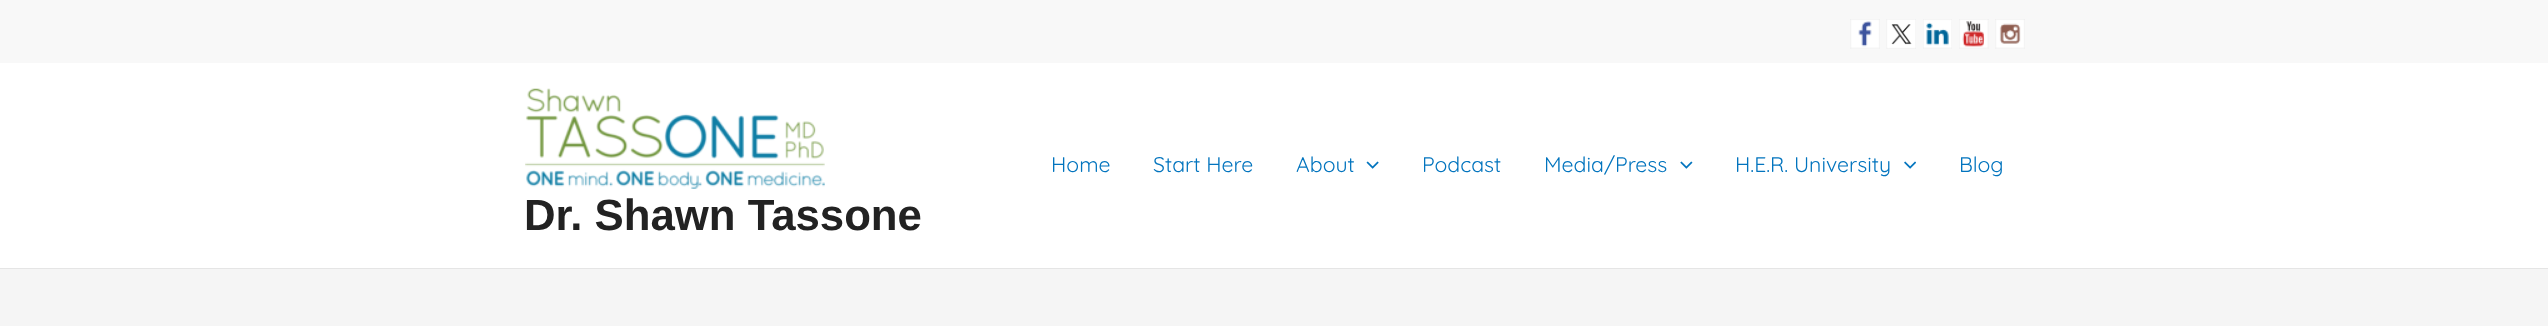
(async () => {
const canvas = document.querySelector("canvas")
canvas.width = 2548
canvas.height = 326
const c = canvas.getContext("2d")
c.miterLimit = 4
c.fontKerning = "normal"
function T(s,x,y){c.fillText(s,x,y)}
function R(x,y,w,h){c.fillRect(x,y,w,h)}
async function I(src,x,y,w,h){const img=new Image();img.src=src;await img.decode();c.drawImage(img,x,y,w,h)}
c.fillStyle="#f5f5f5"
R(0,0,2548,326)
c.fillStyle="#f8f8f8"
R(0,0,2548,63)
await I("1.png",1850,19,30,30)
await I("2.png",1886,19,30,30)
await I("3.png",1923,19,29,30)
await I("4.png",1959,19,30,30)
await I("5.png",1995,19,30,30)
c.fillStyle="#fff"
R(0,63,2548,205)
c.fillStyle="#e5e5e5"
R(0,268,2548,1)
c.font="21.25px Quicksand"
c.fillStyle="#0274be"
T("Home",1051,172)
T("Start Here",1153,172)
T("About",1296,172)
await I("6.png",1366,161,13,8)
T("Podcast",1422,172)
T("Media/Press",1544,172)
await I("7.png",1680,161,13,8)
T("H.E.R. University",1735,172)
await I("8.png",1904,161,12,8)
T("Blog",1959,172)
await I("9.png",525,88,300,101)
c.font="bold 43.75px Liberation Sans"
c.fillStyle="#222"
T("Dr. Shawn Tassone",524,230)
})()
